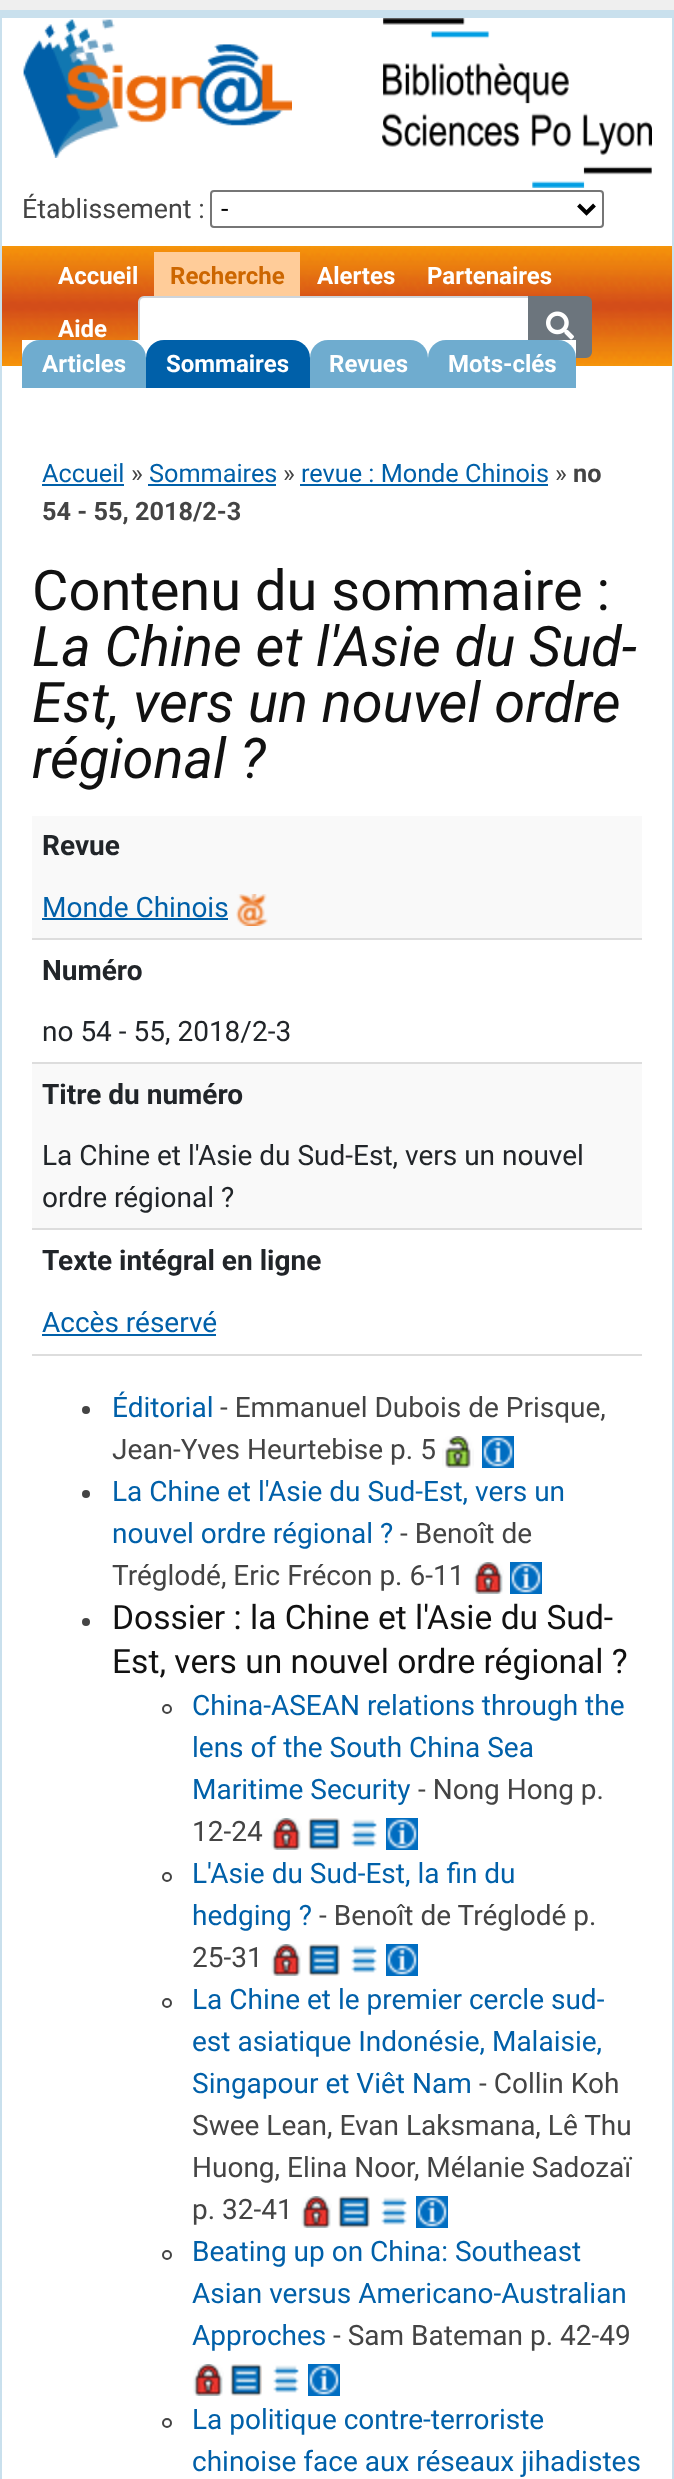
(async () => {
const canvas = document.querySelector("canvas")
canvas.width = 674
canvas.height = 2479
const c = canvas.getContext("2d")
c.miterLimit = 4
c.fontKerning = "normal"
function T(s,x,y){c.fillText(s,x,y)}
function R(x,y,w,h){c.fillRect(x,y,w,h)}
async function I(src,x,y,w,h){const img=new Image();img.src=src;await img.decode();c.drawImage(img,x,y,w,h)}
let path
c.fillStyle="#efefef"
R(0,0,674,2479)
c.fillStyle="#fff"
R(2,18,670,2461)
c.strokeStyle="#c9e0ed"
c.lineWidth=2
c.strokeRect(1,11,672,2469)
c.fillStyle="#c9e0ed"
R(2,12,670,6)
await I("1.png",23,19,269,139)
await I("2.png",382,18,270,170)
c.font="26.75px Roboto"
c.fillStyle="#444"
T("Établissement :",22,218)
c.beginPath()
c.roundRect(211,191,392,36,3)
c.strokeStyle="#767676"
c.stroke()
path = new Path2D("M578.5 205l8 8l8-8")
c.strokeStyle="#000"
c.lineWidth=4
c.stroke(path)
c.fillStyle="#000"
T("-",221,218)
await I("3.png",2,246,670,120)
c.fillStyle="#fc9"
R(154,252,146,44)
c.font="bold 24px Roboto"
c.fillStyle="#c60"
T("Recherche",170,284)
c.fillStyle="#fff"
c.beginPath()
c.roundRect(139,297,390,60,[5,0,0,5])
c.fill()
c.strokeStyle="#ced4da"
c.lineWidth=2
c.stroke()
R(22,340,124,18)
c.fillStyle="#6faccf"
c.beginPath()
c.roundRect(22,340,124,48,[18,18,0,0])
c.fill()
c.fillStyle="#fff"
T("Articles",42,372)
R(146,356,282,2)
c.fillStyle="#0060a9"
c.beginPath()
c.roundRect(146,340,164,48,[18,18,0,0])
c.fill()
c.fillStyle="#fff"
T("Sommaires",166,372)
c.fillStyle="#6faccf"
c.beginPath()
c.roundRect(310,340,118,48,[18,18,0,0])
c.fill()
c.fillStyle="#fff"
T("Revues",329,372)
c.fillStyle="#6c757d"
c.beginPath()
c.roundRect(529,297,62,60,[0,5,5,0])
c.fill()
c.strokeStyle="#6c757d"
c.stroke()
c.fillStyle="#fff"
R(428,340,148,18)
c.fillStyle="#6faccf"
c.beginPath()
c.roundRect(428,340,148,48,[18,18,0,0])
c.fill()
c.fillStyle="#fff"
T("Mots-clés",448,372)
T("Accueil",58,284)
T("Alertes",317,284)
T("Partenaires",427,284)
T("Aide",58,337)
await I("4.png",546,311,28,29)
c.font="25.25px Roboto"
c.fillStyle="#0060a9"
T("Accueil",42,482)
R(42,484,82,2)
c.fillStyle="#444"
T("»",131,482)
c.fillStyle="#0060a9"
T("Sommaires",149,482)
R(148,484,128,2)
c.fillStyle="#444"
T("»",283,482)
c.fillStyle="#0060a9"
T("revue : Monde Chinois",301,482)
R(300,484,248,2)
c.fillStyle="#444"
T("»",555,482)
c.font="bold 25.25px Roboto"
T("no",573,482)
T("54 - 55, 2018/2-3",42,520)
c.font="56px Roboto"
c.fillStyle="#111"
T("Contenu du sommaire :",32,610)
c.font="italic 56px Roboto"
T("La Chine et l'Asie du Sud-",32,666)
T("Est, vers un nouvel ordre",32,722)
T("régional ?",32,778)
c.fillStyle="#ddd"
R(32,938,610,2)
c.fillStyle="#f9f9f9"
R(32,816,610,122)
c.font="bold 28px Roboto"
c.fillStyle="#212529"
T("Revue",42,855)
c.font="28px Roboto"
c.fillStyle="#0060a9"
T("Monde Chinois",42,917)
R(42,918,186,2)
await I("5.png",236,894,32,32)
c.fillStyle="#ddd"
R(32,1062,610,2)
c.font="bold 28px Roboto"
c.fillStyle="#212529"
T("Numéro",42,980)
c.font="28px Roboto"
T("no 54 - 55, 2018/2-3",42,1041)
c.fillStyle="#ddd"
R(32,1228,610,2)
c.fillStyle="#f9f9f9"
R(32,1064,610,164)
c.font="bold 28px Roboto"
c.fillStyle="#212529"
T("Titre du numéro",42,1104)
c.font="28px Roboto"
T("La Chine et l'Asie du Sud-Est, vers un nouvel",42,1165)
T("ordre régional ?",42,1207)
c.fillStyle="#ddd"
R(32,1354,610,2)
c.font="bold 28px Roboto"
c.fillStyle="#212529"
T("Texte intégral en ligne",42,1270)
c.font="28px Roboto"
c.fillStyle="#0060a9"
T("Accès réservé",42,1332)
R(42,1334,174,2)
c.fillStyle="#444"
c.beginPath()
c.arc(86,1410,4,0,7)
c.fill()
c.fillStyle="#0060a9"
T("Éditorial",112,1417)
c.fillStyle="#444"
T("- Emmanuel Dubois de Prisque,",220,1417)
T("Jean-Yves Heurtebise p. 5",112,1459)
await I("6.png",442,1436,32,32)
await I("7.png",482,1436,32,32)
c.beginPath()
c.arc(86,1494,4,0,7)
c.fill()
c.fillStyle="#0060a9"
T("La Chine et l'Asie du Sud-Est, vers un",112,1501)
T("nouvel ordre régional ?",112,1543)
c.fillStyle="#444"
T("- Benoît de",400,1543)
T("Tréglodé, Eric Frécon p. 6-11",112,1585)
await I("8.png",473,1562,31,32)
await I("7.png",510,1562,32,32)
c.beginPath()
c.arc(86,1622,4,0,7)
c.fill()
c.font="33.6px Roboto"
c.fillStyle="#111"
T("Dossier : la Chine et l'Asie du Sud-",112,1629)
T("Est, vers un nouvel ordre régional ?",112,1673)
c.beginPath()
c.arc(167,1709,4,0,7)
c.strokeStyle="#444"
c.stroke()
c.font="28px Roboto"
c.fillStyle="#0060a9"
T("China-ASEAN relations through the",192,1715)
T("lens of the South China Sea",192,1757)
T("Maritime Security",192,1799)
c.fillStyle="#444"
T("- Nong Hong p.",418,1799)
T("12-24",192,1841)
await I("8.png",271,1818,31,32)
await I("9.png",308,1818,32,32)
await I("10.png",351,1819,26,28)
await I("7.png",386,1818,32,32)
c.beginPath()
c.arc(167,1877,4,0,7)
c.stroke()
c.fillStyle="#0060a9"
T("L'Asie du Sud-Est, la fin du",192,1883)
T("hedging ?",192,1925)
c.fillStyle="#444"
T("- Benoît de Tréglodé p.",319,1925)
T("25-31",192,1967)
await I("8.png",271,1944,31,32)
await I("9.png",308,1944,32,32)
await I("10.png",351,1945,26,28)
await I("7.png",386,1944,32,32)
c.beginPath()
c.arc(167,2003,4,0,7)
c.stroke()
c.fillStyle="#0060a9"
T("La Chine et le premier cercle sud-",192,2009)
T("est asiatique Indonésie, Malaisie,",192,2051)
T("Singapour et Viêt Nam",192,2093)
c.fillStyle="#444"
T("- Collin Koh",479,2093)
T("Swee Lean, Evan Laksmana, Lê Thu",192,2135)
T("Huong, Elina Noor, Mélanie Sadozaï",192,2177)
T("p. 32-41",192,2219)
await I("8.png",301,2196,31,32)
await I("9.png",338,2196,32,32)
await I("10.png",381,2197,26,28)
await I("7.png",416,2196,32,32)
c.beginPath()
c.arc(167,2255,4,0,7)
c.stroke()
c.fillStyle="#0060a9"
T("Beating up on China: Southeast",192,2261)
T("Asian versus Americano-Australian",192,2303)
T("Approches",192,2345)
c.fillStyle="#444"
T("- Sam Bateman p. 42-49",333,2345)
await I("8.png",193,2364,31,32)
await I("9.png",230,2364,32,32)
await I("10.png",273,2365,26,28)
await I("7.png",308,2364,32,32)
c.beginPath()
c.arc(167,2423,4,0,7)
c.stroke()
c.fillStyle="#0060a9"
T("La politique contre-terroriste",192,2429)
T("chinoise face aux réseaux jihadistes",192,2471)
})()
